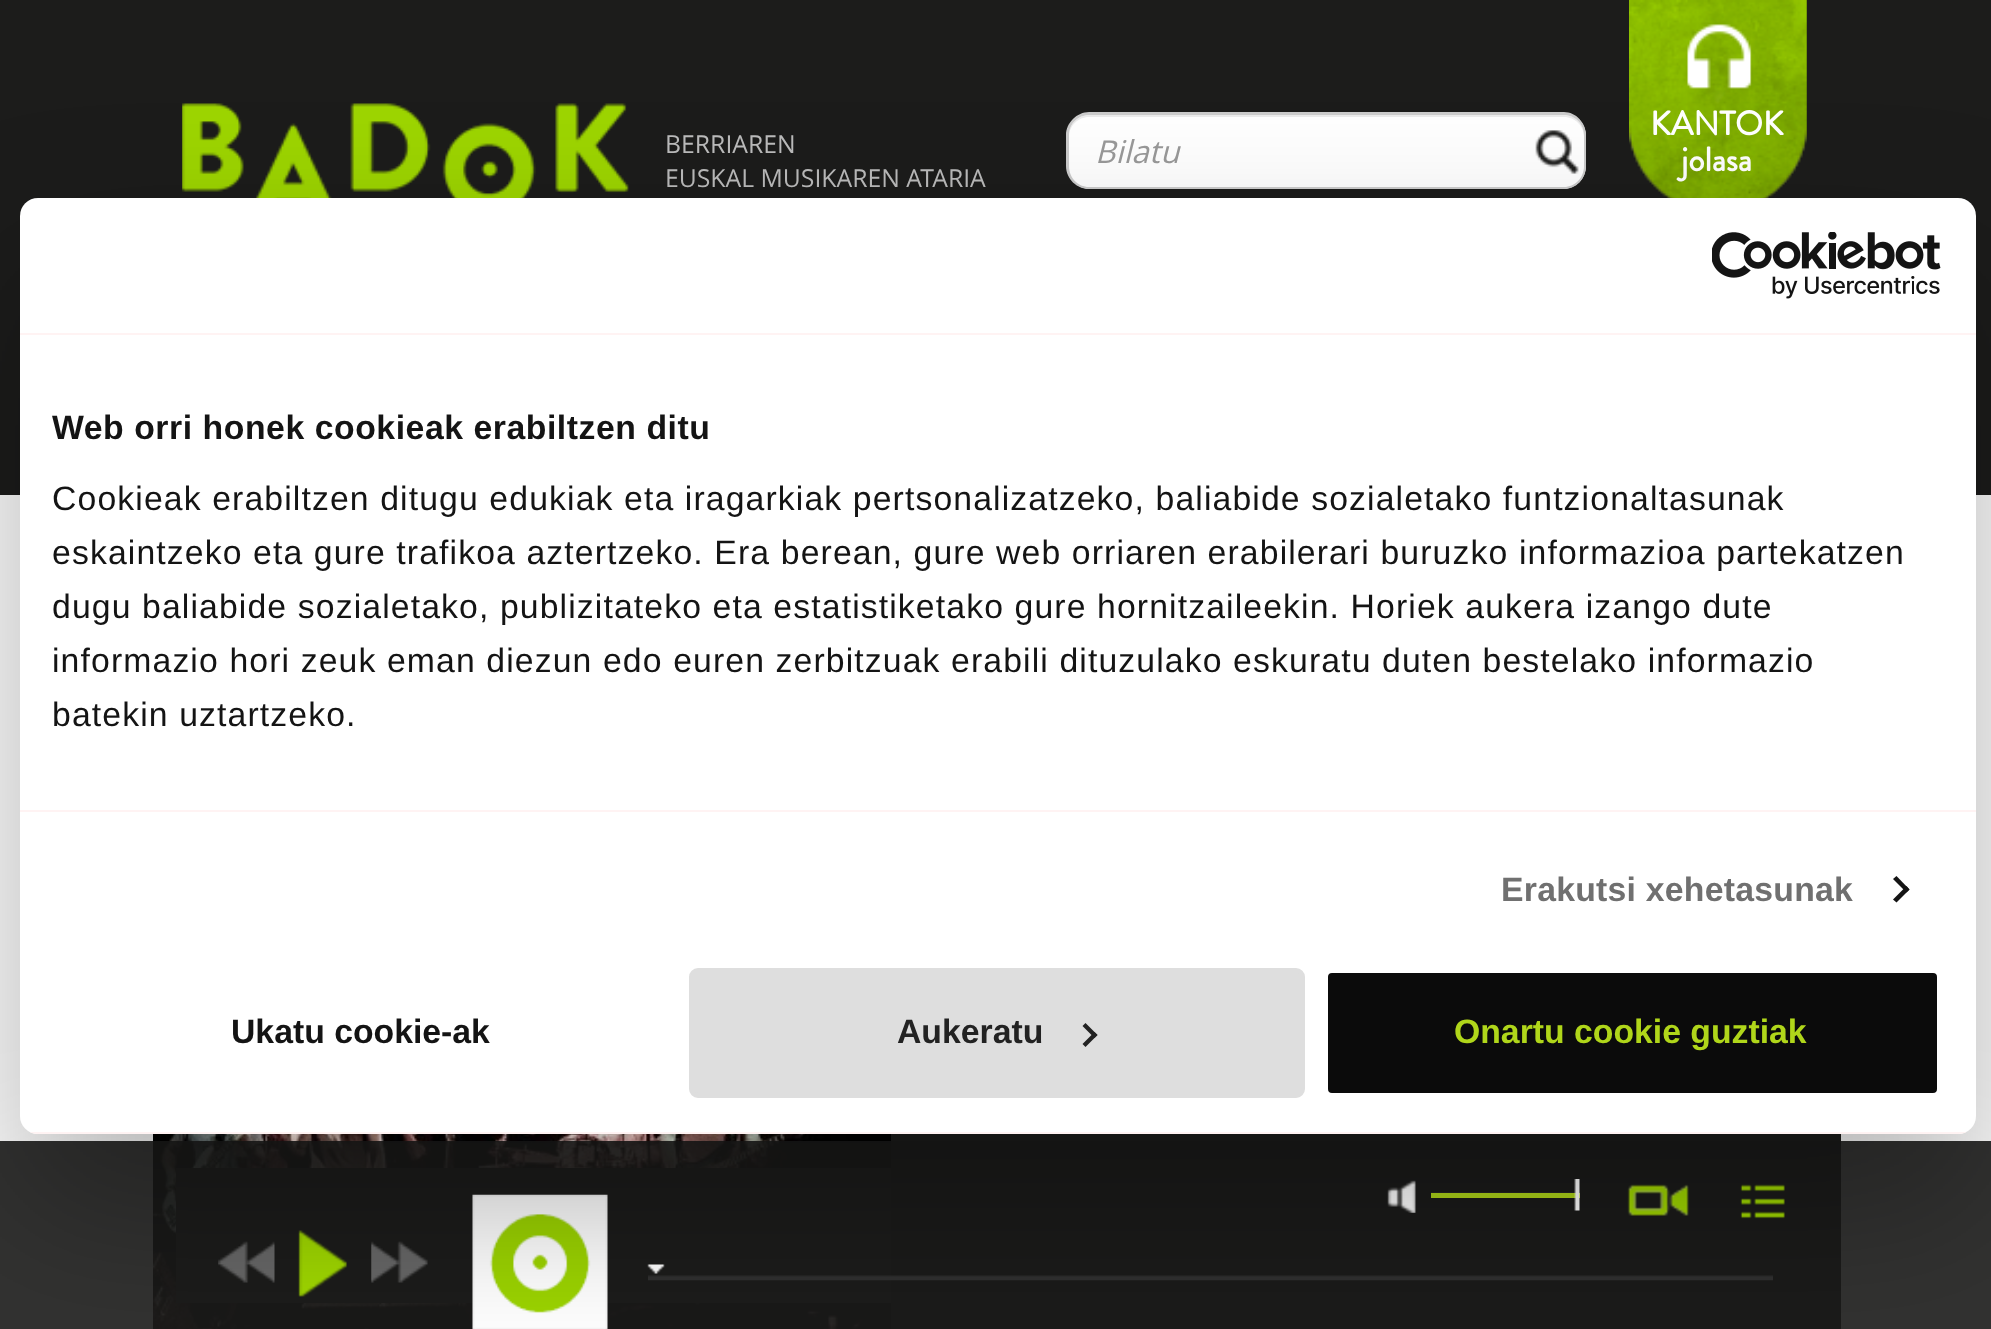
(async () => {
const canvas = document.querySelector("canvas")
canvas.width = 1991
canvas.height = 1329
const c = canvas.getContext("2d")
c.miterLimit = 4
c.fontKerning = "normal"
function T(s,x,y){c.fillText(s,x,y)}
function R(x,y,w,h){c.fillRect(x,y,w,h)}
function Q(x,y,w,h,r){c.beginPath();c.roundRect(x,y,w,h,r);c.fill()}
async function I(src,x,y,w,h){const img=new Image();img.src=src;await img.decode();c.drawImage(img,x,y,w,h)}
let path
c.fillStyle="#fff"
R(0,0,1991,1329)
c.fillStyle="#1c1c1b"
R(0,0,1991,495)
await I("1.png",182,103,447,95)
c.font="24.75px Open Sans"
c.fillStyle="#bbb"
T("BERRIAREN",665,153)
T("EUSKAL MUSIKAREN ATARIA",665,187)
c.fillStyle="#fff"
c.beginPath()
c.roundRect(1067,113,461,76,[23,0,0,23])
c.fill()
c.fillStyle="#ececec"
path = new Path2D("M1089 117h439v-2h-439c-11 0-20 9-20 20v2c0-11 9-20 20-20z")
c.fill(path)
c.fillStyle="#ccc"
path = new Path2D("M1089 112h439v77h-439c-12 0-23-10-23-23v-31c0-12 11-23 23-23zm0 3h439v72h-439c-11 0-20-9-20-21v-31c0-11 9-20 20-20z")
c.fill(path,"evenodd")
c.font="italic 31.5px Open Sans"
c.fillStyle="#999"
T("Bilatu",1095,163)
c.fillStyle="#fff"
c.beginPath()
c.roundRect(1526,113,60,76,[0,23,23,0])
c.fill()
await I("2.png",1535,130,44,44)
c.fillStyle="#ececec"
path = new Path2D("M1526 117h38c11 0 20 9 20 20v-2c0-11-9-20-20-20h-38z")
c.fill(path)
c.fillStyle="#ccc"
path = new Path2D("M1526 112h38c12 0 22 11 22 23v31c0 13-10 23-22 23h-38zm0 3h38c11 0 20 9 20 20v31c0 12-9 21-20 21h-38z")
c.fill(path,"evenodd")
await I("3.png",1629,0,178,198)
c.font="bold 33.75px Brandon Grotesque"
c.fillStyle="#fff"
T("KANTOK",1650,135)
T("jolasa",1681,171)
c.fillStyle="#1c1c1b"
R(891,1134,950,195)
await I("5.png",153,1134,738,195)
c.fillStyle="#1c1c1be6"
R(0,1141,1991,188)
c.fillStyle="#1c1c1b"
R(176,1168,715,135)
await I("6.png",218,1241,57,42)
await I("7.png",298,1230,49,67)
await I("8.png",371,1241,57,42)
await I("9.png",472,1194,136,135)
await I("10.png",1387,1180,29,33)
await I("11.png",1431,1192,149,1)
c.fillStyle="#b0d61a"
R(1431,1193,149,5)
await I("12.png",1574,1179,6,32)
await I("13.png",1627,1184,62,32)
await I("14.png",1740,1184,45,35)
await I("15.png",648,1275,1125,6)
await I("16.png",647,1264,18,10)
c.fillStyle="#0000004d"
c.filter="blur(76.5px)"
c.beginPath()
c.roundRect(20,270,1956,936,18)
c.fill()
c.filter="none"
c.fillStyle="#fff"
Q(20,198,1956,936,18)
c.fillStyle="#fff3f3"
R(20,333,1956,2)
await I("4.png",1712,232,229,67)
R(20,810,1956,2)
c.letterSpacing="0.55px"
c.font="bold 33.75px Liberation Sans"
c.fillStyle="#141414"
T("Web orri honek cookieak erabiltzen ditu",52,439)
c.letterSpacing="1.12px"
c.font="33.75px Liberation Sans"
T("Cookieak erabiltzen ditugu edukiak eta iragarkiak pertsonalizatzeko, baliabide sozialetako funtzionaltasunak",52,510)
T("eskaintzeko eta gure trafikoa aztertzeko. Era berean, gure web orriaren erabilerari buruzko informazioa partekatzen",52,564)
T("dugu baliabide sozialetako, publizitateko eta estatistiketako gure hornitzaileekin. Horiek aukera izango dute",52,618)
T("informazio hori zeuk eman diezun edo euren zerbitzuak erabili dituzulako eskuratu duten bestelako informazio",52,672)
T("batekin uztartzeko.",52,726)
c.letterSpacing="0.25px"
c.font="bold 33.75px Liberation Sans"
c.fillStyle="#707070"
T("Erakutsi xehetasunak",1501,901)
c.fillStyle="#141414"
path = new Path2D("M1896.5 876l13 13.5l-3 3l-13.5-13.5z")
c.fill(path)
path = new Path2D("M1906.5 886l3 3.5l-13 13l-3.5-3z")
c.fill(path)
c.save()
c.beginPath()
c.roundRect(20,198,1956,936,18)
c.clip()
c.fillStyle="#fff3f3"
R(30,1132,1936,2)
c.restore()
c.letterSpacing="0px"
T("Ukatu cookie-ak",231,1043)
c.fillStyle="#dedede"
c.beginPath()
c.roundRect(691.5,970.5,611,125,6.5)
c.fill()
c.strokeStyle="#dedede"
c.lineWidth=5
c.stroke()
c.fillStyle="#222"
T("Aukeratu",897,1043)
path = new Path2D("M1085.5 1023l12 12l-3 3l-12-12z")
c.fill(path)
path = new Path2D("M1094.5 1032l3 3l-12 12l-3-3z")
c.fill(path)
c.fillStyle="#0b0b0b"
c.beginPath()
c.roundRect(1325.5,970.5,614,125,6.5)
c.fill()
c.strokeStyle="#fff"
c.stroke()
c.fillStyle="#b0d61a"
T("Onartu cookie guztiak",1454,1043)
})()
